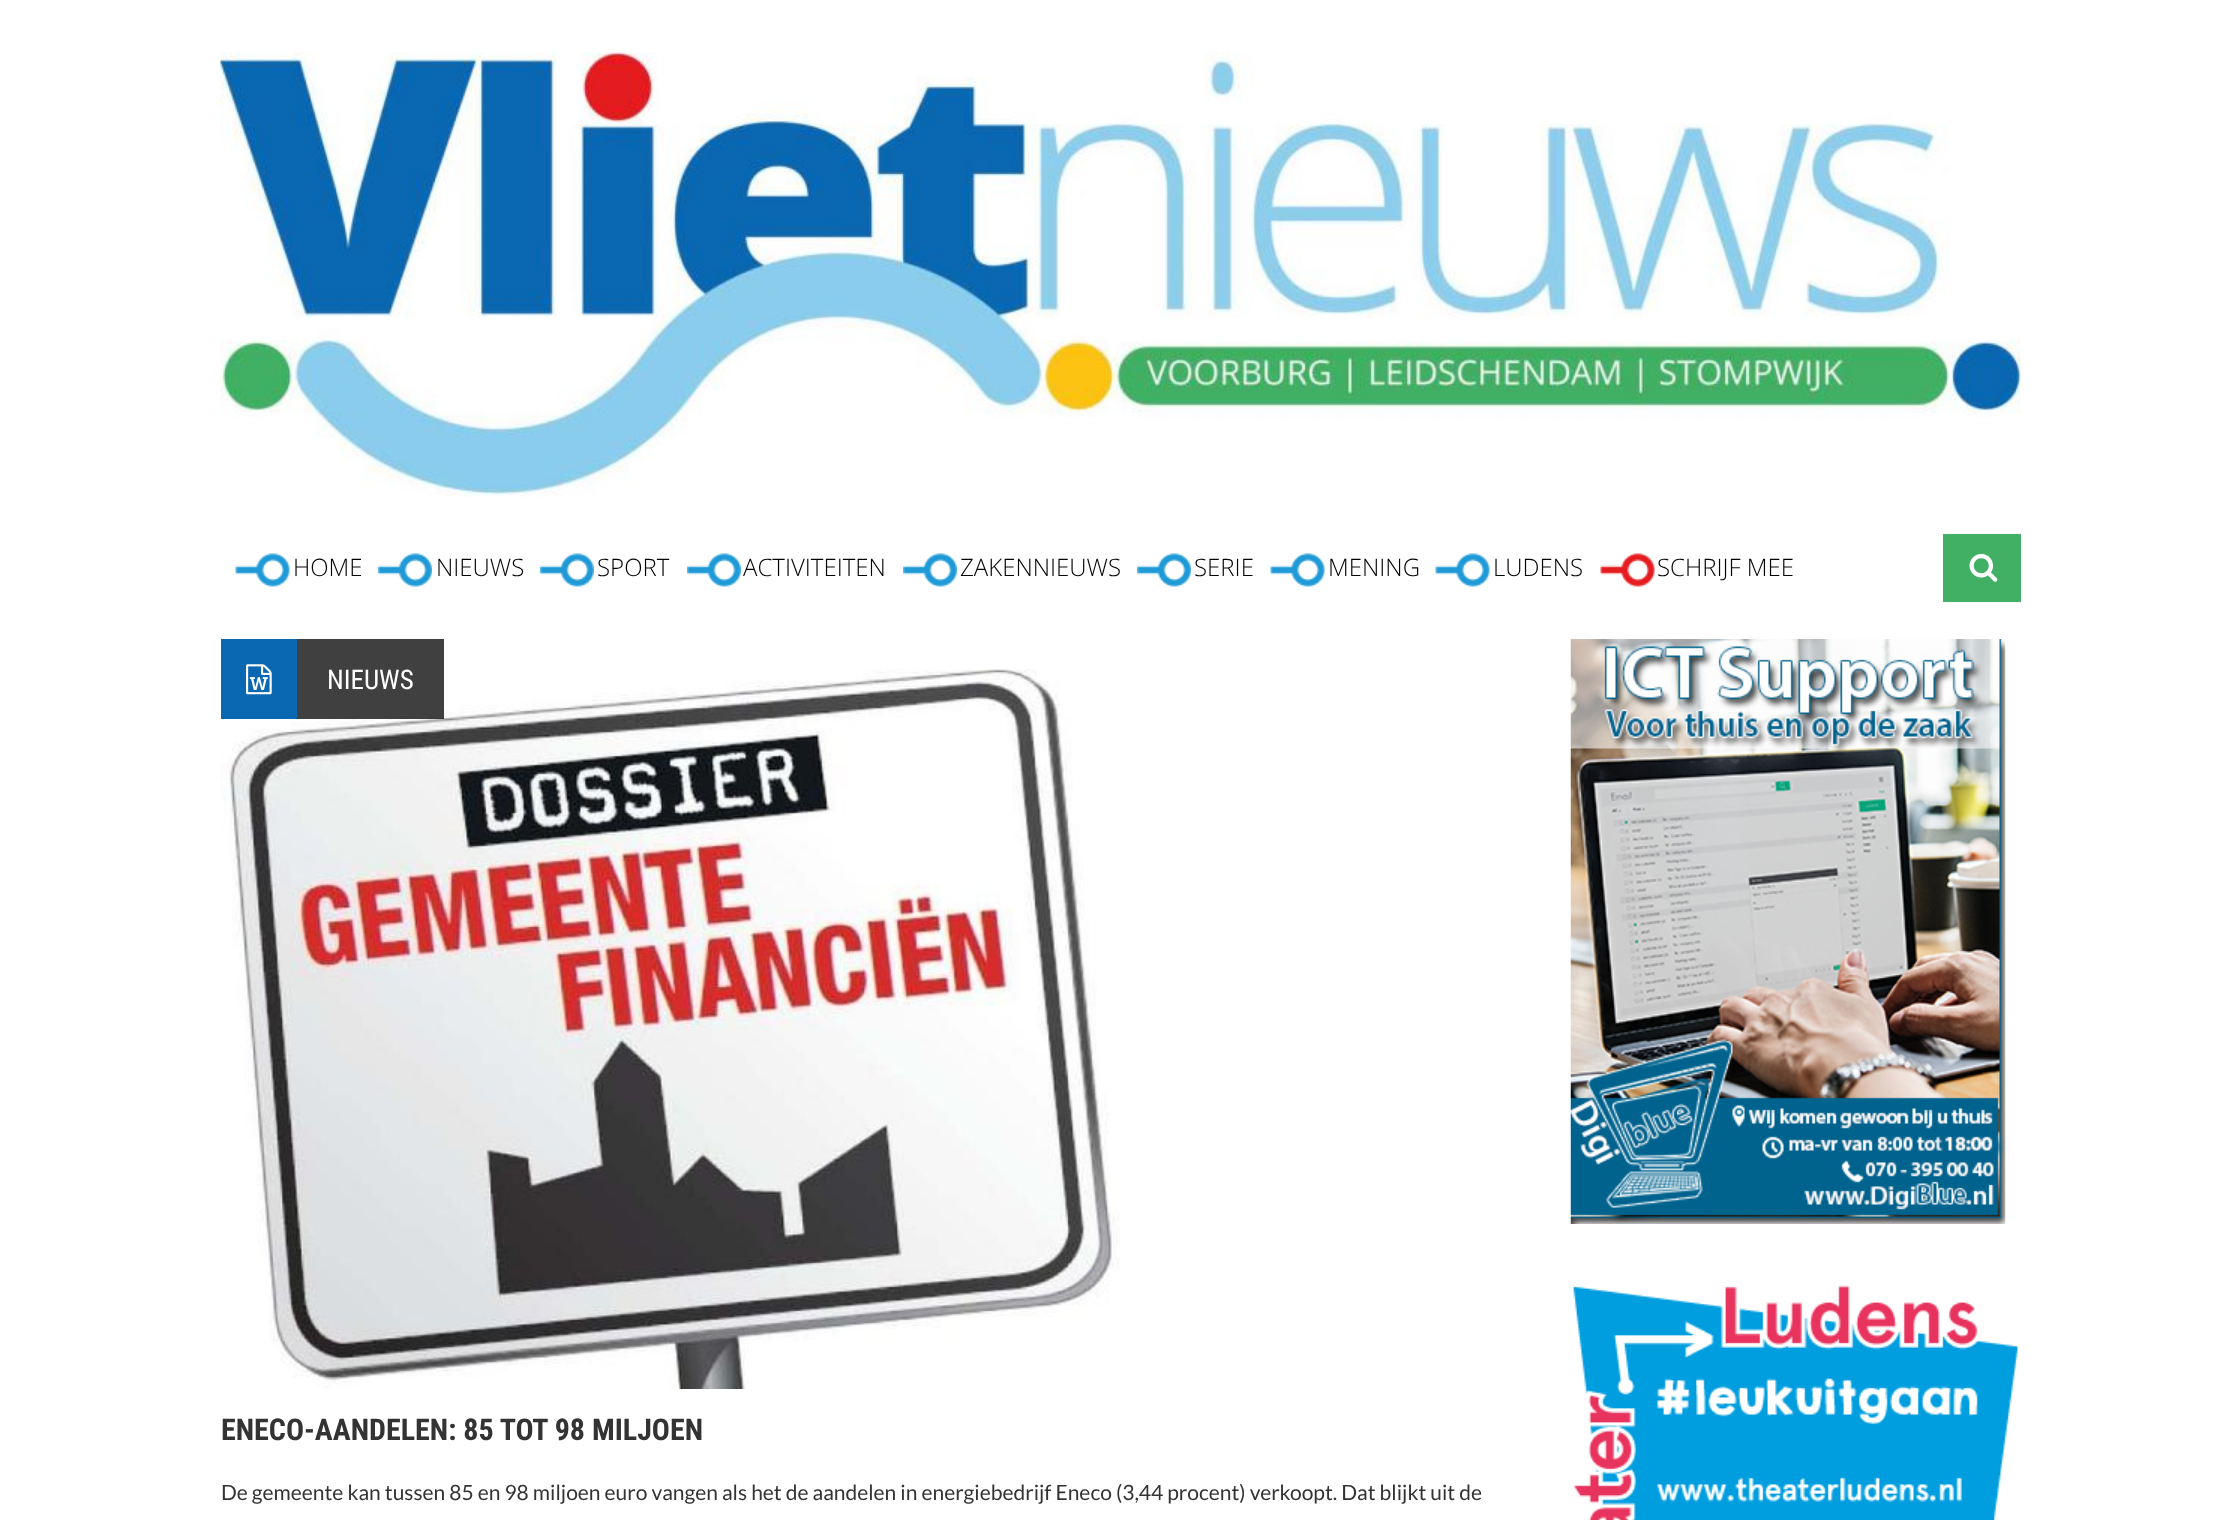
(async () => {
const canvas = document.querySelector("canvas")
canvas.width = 2240
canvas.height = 1520
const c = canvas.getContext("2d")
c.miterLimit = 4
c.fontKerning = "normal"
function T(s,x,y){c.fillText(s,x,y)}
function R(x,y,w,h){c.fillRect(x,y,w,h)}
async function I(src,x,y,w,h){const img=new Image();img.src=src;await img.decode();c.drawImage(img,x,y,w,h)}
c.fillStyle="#fff"
R(0,0,2240,1520)
await I("1.png",220,52,1801,445)
await I("2.png",235,553,55,34)
c.font="300 24px Open Sans"
c.fillStyle="#030304"
T("HOME",293,576)
await I("3.png",378,553,54,34)
T("NIEUWS",436,576)
await I("4.png",540,553,54,34)
T("SPORT",597,576)
await I("4.png",687,553,54,34)
T("ACTIVITEITEN",743,576)
await I("4.png",903,553,54,34)
T("ZAKENNIEUWS",960,576)
await I("3.png",1137,553,54,34)
T("SERIE",1194,576)
await I("2.png",1270,553,55,34)
T("MENING",1328,576)
await I("5.png",1435,553,55,34)
T("LUDENS",1493,576)
await I("6.png",1600,553,55,34)
T("SCHRIJF MEE",1657,576)
c.fillStyle="#41b064"
R(1943,534,78,68)
await I("7.png",1969,553,29,29)
await I("9.png",220,669,900,720)
c.fillStyle="#0a68b2"
R(221,639,76,80)
await I("8.png",246,664,26,31)
c.fillStyle="#000000bf"
R(297,639,147,80)
c.font="27px Roboto Condensed"
c.fillStyle="#fff"
T("NIEUWS",327,689)
c.font="bold 30px Roboto Condensed"
c.fillStyle="#333"
T("ENECO-AANDELEN: 85 TOT 98 MILJOEN",221,1440)
c.font="21px Lato"
T("De gemeente kan tussen 85 en 98 miljoen euro vangen als het de aandelen in energiebedrijf Eneco (3,44 procent) verkoopt. Dat blijkt uit de",221,1500)
await I("10.png",1570,639,436,585)
await I("11.png",1573,1285,445,235)
})()
